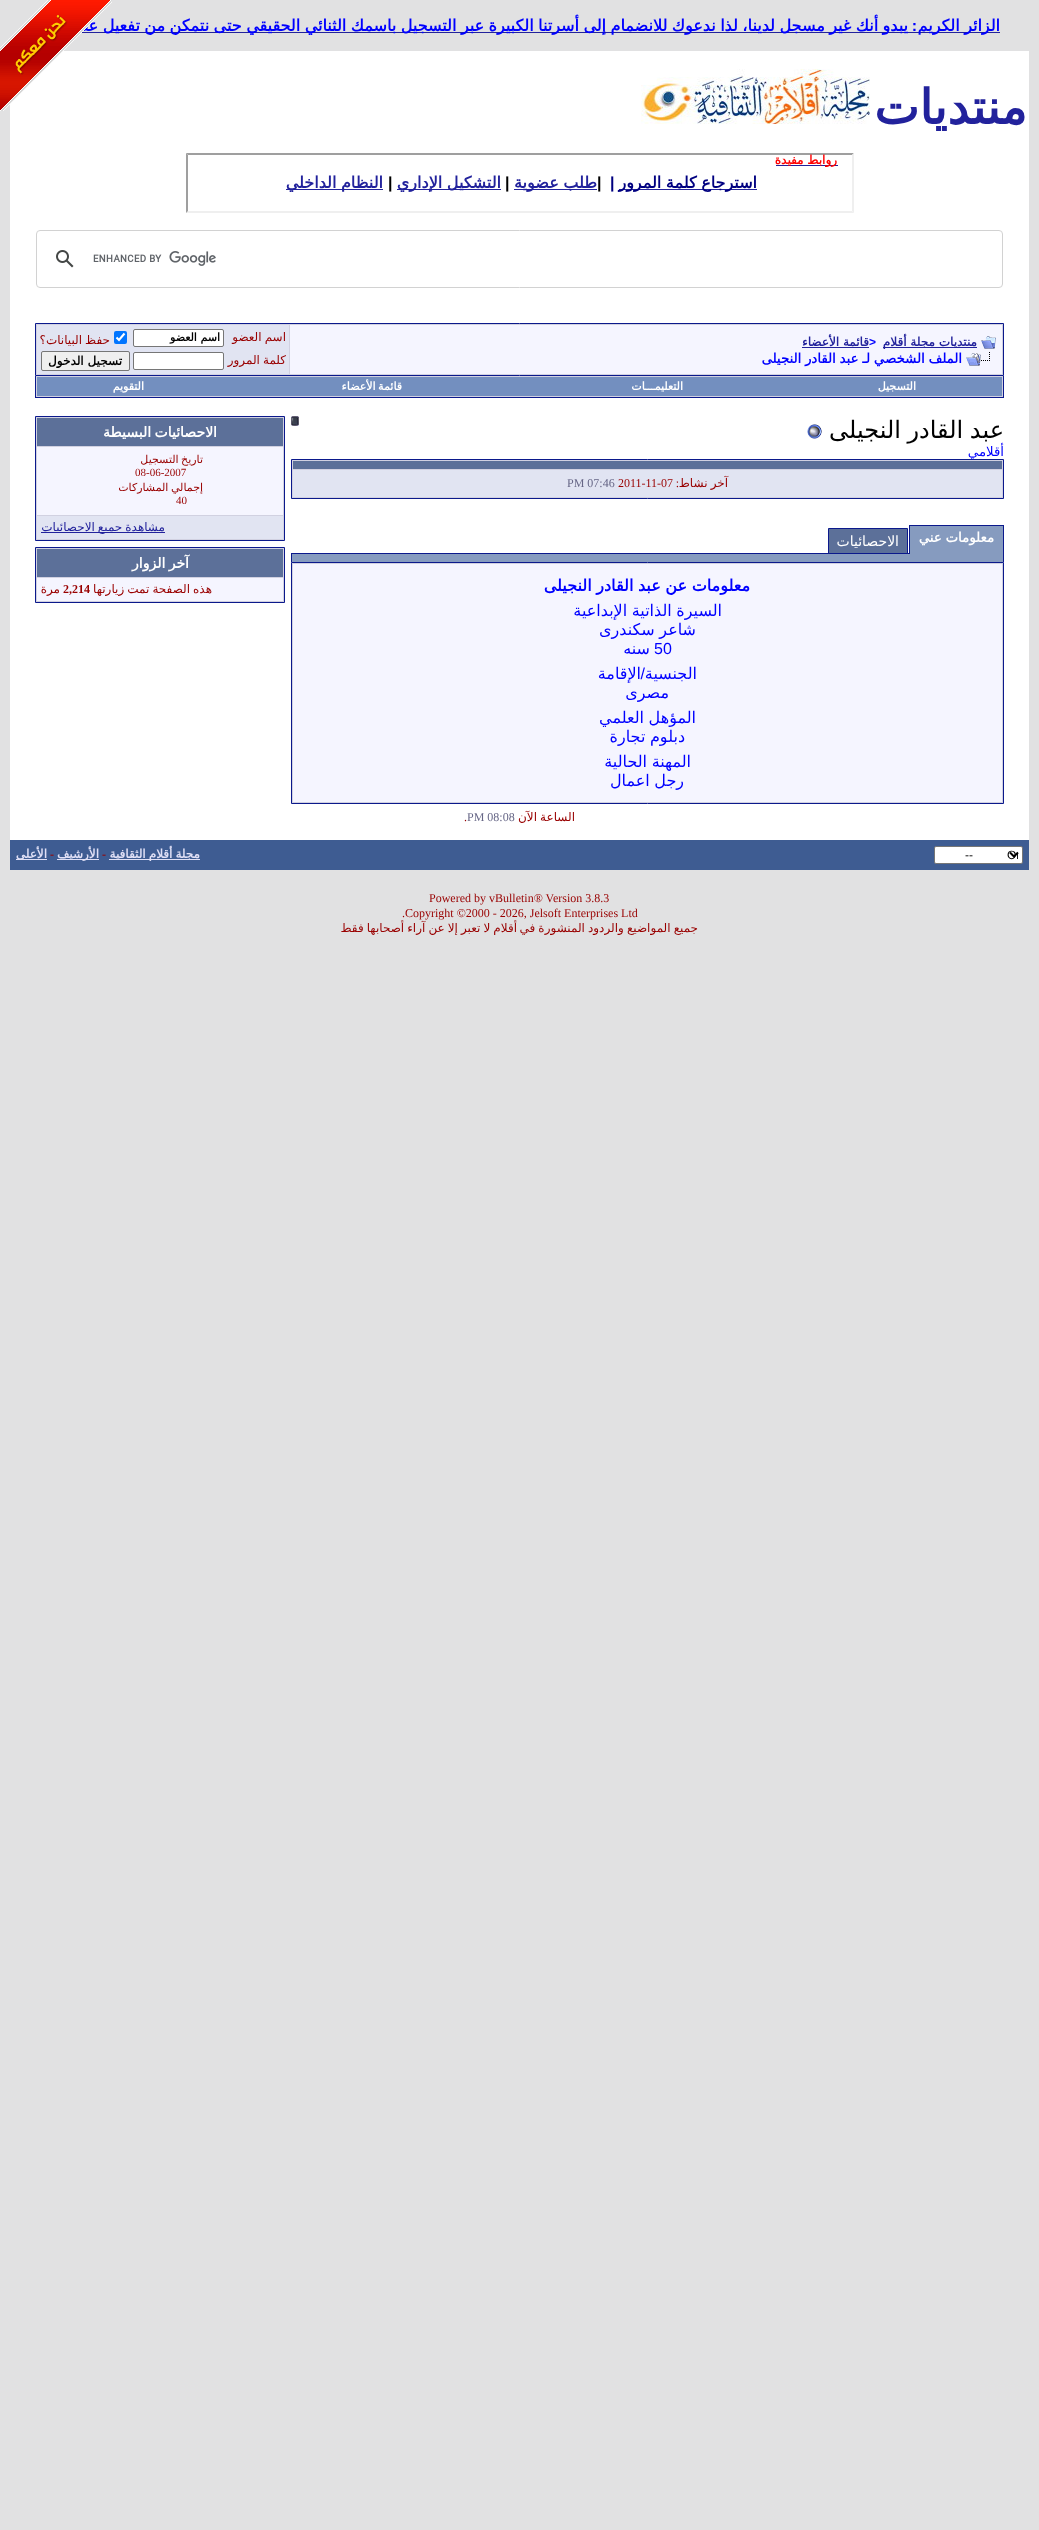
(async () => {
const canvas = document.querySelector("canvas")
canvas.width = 1039
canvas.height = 2530
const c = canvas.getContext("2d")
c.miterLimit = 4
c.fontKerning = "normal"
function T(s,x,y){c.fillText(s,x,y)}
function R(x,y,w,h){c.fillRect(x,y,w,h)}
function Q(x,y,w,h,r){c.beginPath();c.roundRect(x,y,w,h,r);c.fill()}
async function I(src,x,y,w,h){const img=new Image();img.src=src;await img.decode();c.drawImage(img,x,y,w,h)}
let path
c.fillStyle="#e1e1e2"
R(0,0,1039,2530)
c.fillStyle="#22229c"
R(82,32,918,1)
c.wordSpacing="-0.6px"
c.direction="rtl"
c.font="bold 16px DejaVu Sans"
c.fillStyle="#00f"
T("الزائر الكريم",1000,31)
c.wordSpacing="0px"
c.font="bold 16px Liberation Sans"
T(":",917,31)
c.wordSpacing="-0.6px"
c.font="bold 16px DejaVu Sans"
T("يبدو أنك غير مسجل لدينا، لذا ندعوك للانضمام إلى أسرتنا الكبيرة عبر التسجيل باسمك الثنائي الحقيقي حتى نتمكن من تفعيل عضويتك",908,31)
c.fillStyle="#fff"
R(10,51,1019,789)
c.wordSpacing="0px"
c.font="bold 48px DejaVu Sans"
c.fillStyle="#22229c"
T("منتديات",1027,124)
await I("1.png",641,69,229,55)
await I("2.png",0,0,112,111)
c.fillStyle="#9f9f9f"
path = new Path2D("M186 153h668l-2 2h-664z")
c.fill(path)
c.fillStyle="#efefef"
path = new Path2D("M854 153v60l-2-2v-56z")
c.fill(path)
path = new Path2D("M854 213h-668l2-2h664z")
c.fill(path)
c.fillStyle="#9f9f9f"
path = new Path2D("M186 213v-60l2 2v56z")
c.fill(path)
c.fillStyle="#22229c"
R(776,165,62,1)
c.font="bold 12px DejaVu Sans"
c.fillStyle="#f00"
T("روابط مفيدة",837,164)
c.fillStyle="#22229c"
R(619,189,138,1)
c.wordSpacing="-0.5px"
c.font="bold 16px DejaVu Sans"
c.fillStyle="#000080"
T("استرجاع كلمة المرور",757,188)
c.wordSpacing="0px"
c.direction="ltr"
c.font="bold 16px Liberation Sans"
T("|",610,188)
c.fillStyle="#000"
T("|",597,188)
c.fillStyle="#22229c"
R(514,189,83,1)
c.wordSpacing="-0.5px"
c.direction="rtl"
c.font="bold 16px DejaVu Sans"
T("طلب عضوية",597,188)
c.wordSpacing="0px"
c.direction="ltr"
c.font="bold 16px Liberation Sans"
c.fillStyle="#000"
T("|",505,188)
c.fillStyle="#22229c"
R(397,189,104,1)
c.wordSpacing="-0.5px"
c.direction="rtl"
c.font="bold 16px DejaVu Sans"
T("التشكيل الإداري",501,188)
c.wordSpacing="0px"
c.direction="ltr"
c.font="bold 16px Liberation Sans"
c.fillStyle="#000"
T("|",388,188)
c.fillStyle="#22229c"
R(286,189,97,1)
c.wordSpacing="-0.5px"
c.direction="rtl"
c.font="bold 16px DejaVu Sans"
T("النظام الداخلي",383,188)
c.beginPath()
c.roundRect(36.5,230.5,966,57,3.5)
c.strokeStyle="#d2d2d2"
c.stroke()
await I("3.png",56,250,18,18)
await I("4.png",93,251,123,15)
c.fillStyle="#d1d1e1"
c.beginPath()
c.rect(35.5,323.5,968,52)
c.fill()
c.strokeStyle="#0b198c"
c.stroke()
c.fillStyle="#f5f5ff"
R(290,325,712,49)
await I("5.png",981,336,15,13)
c.fillStyle="#22229c"
R(883,347,94,1)
c.wordSpacing="0px"
c.font="bold 12px DejaVu Sans"
T("منتديات مجلة أقلام",977,346)
c.direction="ltr"
c.font="bold 12px Liberation Sans"
c.fillStyle="#00f"
T(">",869,346)
c.fillStyle="#22229c"
R(802,347,67,1)
c.direction="rtl"
c.font="bold 12px DejaVu Sans"
T("قائمة الأعضاء",869,346)
await I("6.png",966,352,24,14)
c.wordSpacing="-0.5px"
c.font="bold 13.3px DejaVu Sans"
c.fillStyle="#00f"
T("الملف الشخصي لـ عبد القادر النجيلى",962,363)
c.fillStyle="#e1e4f2"
R(37,325,252,49)
c.wordSpacing="-0.75px"
c.font="12px DejaVu Sans"
c.fillStyle="#900"
T("اسم العضو",286,341)
c.fillStyle="#fff"
c.beginPath()
c.roundRect(133.5,329.5,90,17,1.5)
c.fill()
c.strokeStyle="#767676"
c.stroke()
c.wordSpacing="0px"
c.font="bold 11px DejaVu Sans"
c.fillStyle="#000"
T("اسم العضو",220,341)
c.fillStyle="#0075ff"
Q(114,331,13,13,2)
path = new Path2D("M116.5 337.5l2.5 2.5l5.5-6.5")
c.strokeStyle="#fff"
c.lineWidth=2.1
c.stroke(path)
c.wordSpacing="-0.75px"
c.font="12px DejaVu Sans"
c.fillStyle="#900"
T("حفظ البيانات؟",110,344)
T("كلمة المرور",286,364)
c.fillStyle="#fff"
c.beginPath()
c.roundRect(133.5,352.5,90,17,1.5)
c.fill()
c.strokeStyle="#767676"
c.lineWidth=1
c.stroke()
c.fillStyle="#efefef"
c.beginPath()
c.roundRect(41.5,351.5,88,19,1.5)
c.fill()
c.stroke()
c.wordSpacing="0px"
c.font="bold 12px DejaVu Sans"
c.fillStyle="#000"
T("تسجيل الدخول",122,365)
c.fillStyle="#d1d1e1"
R(36,376,967,21)
c.fillStyle="#0b198c"
R(1003,376,1,22)
R(35,397,969,1)
R(35,376,1,22)
c.fillStyle="#738fbf"
R(37,377,965,19)
c.font="bold 11px DejaVu Sans"
c.fillStyle="#fff"
T("التسجيل",916,390)
T("التعليمـــات",683,390)
c.wordSpacing="-1px"
T("قائمة الأعضاء",402,390)
c.wordSpacing="0px"
T("التقويم",144,390)
c.wordSpacing="-1px"
c.font="24px DejaVu Sans"
c.fillStyle="#000"
T("عبد القادر النجيلى",1004,438)
await I("7.png",807,424,15,15)
await I("8.png",291,416,8,10)
c.fillStyle="#d1d1e1"
c.beginPath()
c.rect(291.5,459.5,712,39)
c.fill()
c.strokeStyle="#0b198c"
c.stroke()
c.wordSpacing="0px"
c.font="13.3px DejaVu Sans"
c.fillStyle="#00f"
T("أقلامي",1004,456)
c.fillStyle="#5c7099"
R(293,461,709,8)
c.fillStyle="#e1e4f2"
R(293,470,709,27)
c.wordSpacing="-0.75px"
c.font="12px DejaVu Sans"
c.fillStyle="#900"
T("آخر نشاط",728,487)
c.wordSpacing="0px"
c.font="12px Liberation Serif"
T(":",679,487)
c.direction="ltr"
T("2011-11-07",618,487)
c.fillStyle="#666686"
T("PM 07:46",567,487)
c.fillStyle="#869bbf"
R(910,526,93,28)
c.fillStyle="#0b198c"
R(909,525,95,1)
R(1003,553,1,9)
R(1003,525,1,29)
R(909,525,1,29)
c.wordSpacing="-0.5px"
c.direction="rtl"
c.font="bold 13.3px DejaVu Sans"
c.fillStyle="#fff"
T("معلومات عني",994,542)
c.fillStyle="#0b198c"
R(291,553,618,1)
c.fillStyle="#5c7099"
c.beginPath()
c.rect(828.5,528.5,79,25)
c.fill()
c.stroke()
c.wordSpacing="0px"
c.font="14px DejaVu Sans"
c.fillStyle="#fff"
T("الاحصائيات",899,546)
c.fillStyle="#869bbf"
R(292,554,711,8)
c.fillStyle="#0b198c"
R(291,553,1,9)
c.fillStyle="#d1d1e1"
c.beginPath()
c.rect(291.5,562.5,712,241)
c.fill()
c.stroke()
c.fillStyle="#f5f5ff"
R(293,564,709,238)
c.wordSpacing="-0.5px"
c.font="bold 16px DejaVu Sans"
c.fillStyle="#00f"
T("معلومات عن عبد القادر النجيلى",750,591)
c.font="16px DejaVu Sans"
T("السيرة الذاتية الإبداعية",722,616)
T("شاعر سكندرى",696,635)
c.wordSpacing="0px"
c.direction="ltr"
c.font="16px Liberation Sans"
T("50",654,654)
c.direction="rtl"
c.font="16px DejaVu Sans"
T("سنه",650,654)
T("الجنسية",697,679)
c.font="16px Liberation Sans"
T("/",645,679)
c.font="16px DejaVu Sans"
T("الإقامة",641,679)
T("مصرى",669,698)
c.wordSpacing="-0.5px"
T("المؤهل العلمي",696,723)
T("دبلوم تجارة",685,742)
T("المهنة الحالية",691,767)
T("رجل اعمال",684,786)
c.fillStyle="#d1d1e1"
c.beginPath()
c.rect(35.5,416.5,249,124)
c.fill()
c.stroke()
c.fillStyle="#5c7099"
R(37,418,246,28)
c.wordSpacing="-1px"
c.font="bold 14px DejaVu Sans"
c.fillStyle="#fff"
T("الاحصائيات البسيطة",217,437)
c.fillStyle="#f5f5ff"
R(37,447,246,68)
c.font="11px DejaVu Sans"
c.fillStyle="#900"
T("تاريخ التسجيل",203,463)
c.wordSpacing="0px"
c.direction="ltr"
c.font="11px Liberation Serif"
T("08-06-2007",135,476)
c.wordSpacing="-1px"
c.direction="rtl"
c.font="11px DejaVu Sans"
T("إجمالي المشاركات",203,491)
c.wordSpacing="0px"
c.direction="ltr"
c.font="11px Liberation Serif"
T("40",176,504)
c.fillStyle="#e1e4f2"
R(37,516,246,23)
c.fillStyle="#22229c"
R(41,532,124,1)
c.wordSpacing="-0.75px"
c.direction="rtl"
c.font="12px DejaVu Sans"
T("مشاهدة جميع الاحصائيات",165,531)
c.fillStyle="#d1d1e1"
c.beginPath()
c.rect(35.5,547.5,249,55)
c.fill()
c.stroke()
c.fillStyle="#5c7099"
R(37,549,246,28)
c.wordSpacing="-1px"
c.font="bold 14px DejaVu Sans"
c.fillStyle="#fff"
T("آخر الزوار",189,568)
c.fillStyle="#f5f5ff"
R(37,578,246,23)
c.wordSpacing="-0.75px"
c.font="12px DejaVu Sans"
c.fillStyle="#900"
T("هذه الصفحة تمت زيارتها",212,593)
c.wordSpacing="0px"
c.direction="ltr"
c.font="bold 12px Liberation Serif"
T("2,214",63,593)
c.direction="rtl"
c.font="12px DejaVu Sans"
T("مرة",60,593)
c.wordSpacing="-0.75px"
T("الساعة الآن",575,821)
c.wordSpacing="0px"
c.direction="ltr"
c.font="12px Liberation Serif"
c.fillStyle="#666686"
T("PM 08:08",467,821)
c.fillStyle="#900"
T(".",464,821)
c.fillStyle="#3e5c92"
R(10,840,1019,30)
c.fillStyle="#fff"
c.beginPath()
c.roundRect(934.5,846.5,88,17,1.5)
c.fill()
c.strokeStyle="#767676"
c.stroke()
path = new Path2D("M1010 852.5l4 4l4-4")
c.strokeStyle="#000"
c.lineWidth=2
c.stroke(path)
c.save()
c.beginPath()
c.rect(951,847,67,16)
c.clip()
c.font="12px Liberation Sans"
c.fillStyle="#000"
T("Or",1007,859)
c.restore()
c.font="12px Liberation Sans"
c.fillStyle="#000"
T("--",965,859)
c.fillStyle="#e0e0f6"
R(109,859,91,1)
c.wordSpacing="-0.75px"
c.direction="rtl"
c.font="bold 12px DejaVu Sans"
T("مجلة أقلام الثقافية",200,858)
c.wordSpacing="0px"
c.direction="ltr"
c.font="bold 12px Liberation Serif"
c.fillStyle="#900"
T("-",102,858)
c.fillStyle="#e0e0f6"
R(57,859,42,1)
c.direction="rtl"
c.font="bold 12px DejaVu Sans"
T("الأرشيف",99,858)
c.direction="ltr"
c.font="bold 12px Liberation Serif"
c.fillStyle="#900"
T("-",50,858)
c.fillStyle="#e0e0f6"
R(16,859,31,1)
c.direction="rtl"
c.font="bold 12px DejaVu Sans"
T("الأعلى",47,858)
c.direction="ltr"
c.font="12px Liberation Serif"
c.fillStyle="#900"
T("Powered by vBulletin® Version 3.8.3",429,902)
T(".Copyright ©2000 - 2026, Jelsoft Enterprises Ltd",402,917)
c.wordSpacing="-0.75px"
c.direction="rtl"
c.font="12px DejaVu Sans"
T("جميع المواضيع والردود المنشورة في",698,932)
T("أقلام لا تعبر إلا عن آراء أصحابها فقط",517,932)
})()
